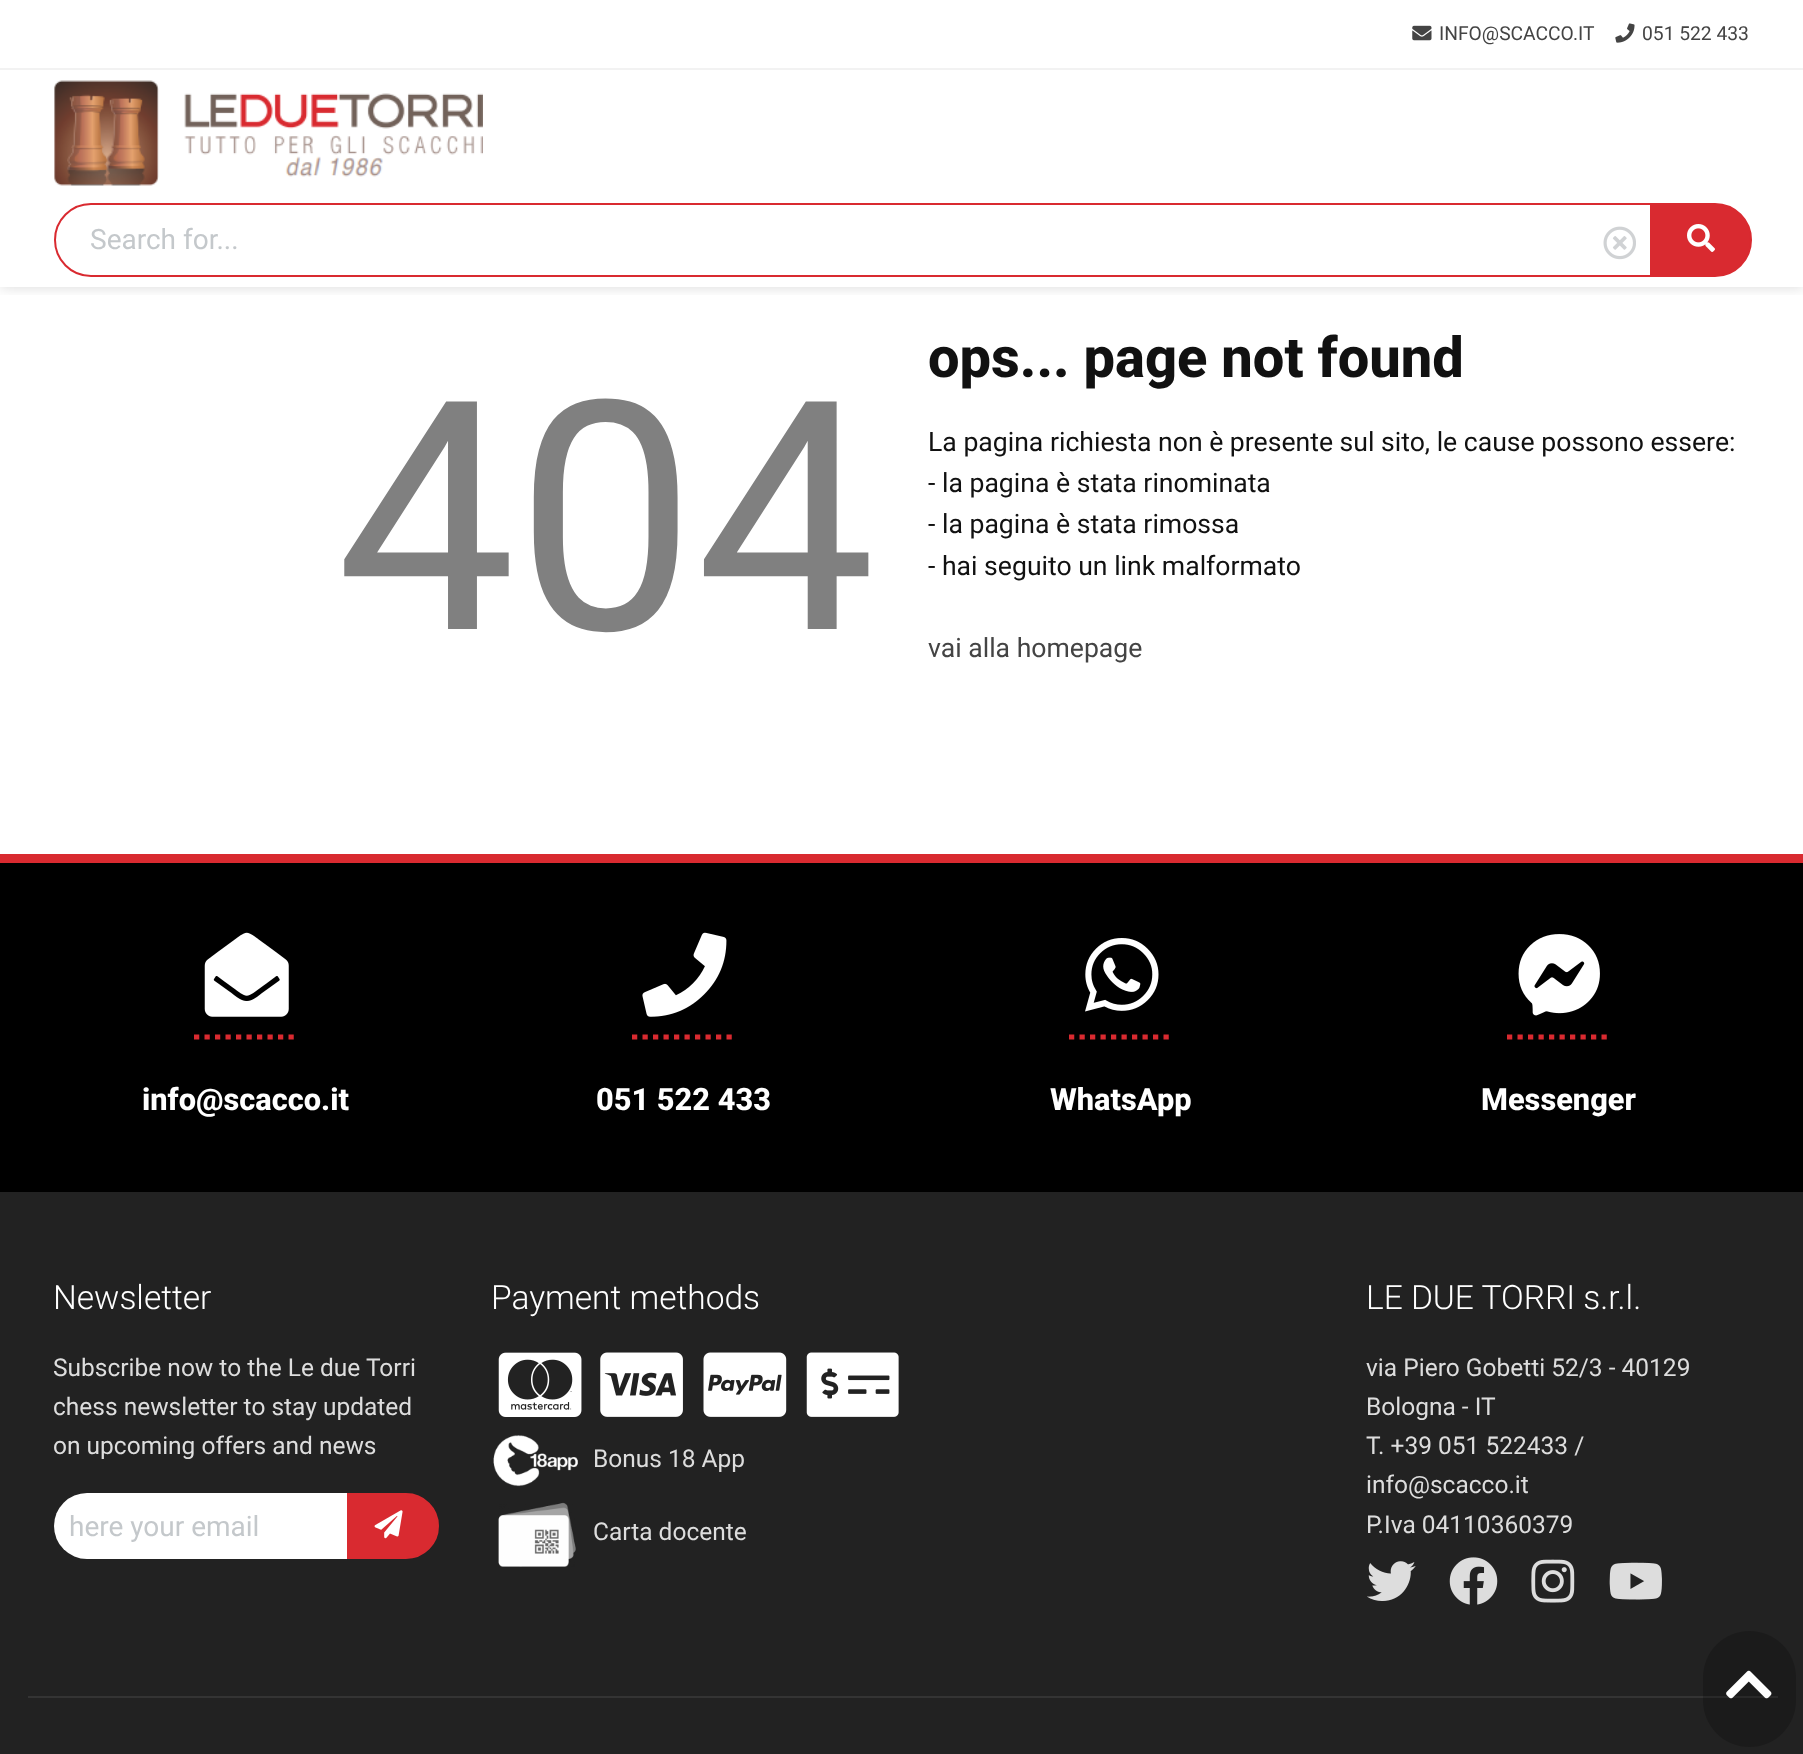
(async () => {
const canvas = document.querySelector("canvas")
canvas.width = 1803
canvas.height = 1754
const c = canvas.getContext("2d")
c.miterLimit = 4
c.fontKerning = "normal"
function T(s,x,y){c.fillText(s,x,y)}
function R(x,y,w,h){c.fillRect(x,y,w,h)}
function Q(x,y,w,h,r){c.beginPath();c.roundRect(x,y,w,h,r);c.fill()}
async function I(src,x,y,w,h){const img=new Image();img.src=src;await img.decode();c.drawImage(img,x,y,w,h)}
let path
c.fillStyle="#fff"
R(0,0,1803,1754)
c.save()
c.beginPath()
c.rect(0,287,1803,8)
c.clip()
c.fillStyle="#00000026"
c.filter="blur(7px)"
c.beginPath()
c.rect(0,0,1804,287)
c.fill()
c.filter="none"
c.restore()
c.fillStyle="#f2f2f2"
R(0,68,1803,2)
await I("1.png",1412,25,20,16)
c.font="19.25px Roboto"
c.fillStyle="#444"
T("INFO@SCACCO.IT",1439,40)
await I("2.png",1615,23,20,20)
T("051 522 433",1642,40)
await I("3.png",54,80,429,106)
c.beginPath()
c.roundRect(55,204,1596,72,[36,0,0,36])
c.strokeStyle="#d92a30"
c.lineWidth=2
c.stroke()
c.font="28px Roboto"
c.fillStyle="#c4c8cb"
T("Search for...",90,249)
await I("4.png",1603,226,33,34)
c.fillStyle="#d92a30"
c.beginPath()
c.roundRect(1651,204,100,72,[0,36,36,0])
c.fill()
c.stroke()
await I("5.png",1687,224,28,28)
c.font="320px Roboto"
c.fillStyle="#808080"
T("404",336,629)
c.font="800 56px Roboto"
c.fillStyle="#111"
T("ops... page not found",928,377)
c.font="26.6px Roboto"
T("La pagina richiesta non è presente sul sito, le cause possono essere:",928,451)
T("- la pagina è stata rinominata",928,492)
T("- la pagina è stata rimossa",928,533)
T("- hai seguito un link malformato",928,575)
c.fillStyle="#444"
T("vai alla homepage",928,657)
c.fillStyle="#222"
R(0,1192,1803,562)
c.fillStyle="#d92a30"
R(0,854,1803,9)
c.fillStyle="#000"
R(0,863,1803,329)
path = new Path2D("M194 1037h105")
c.lineWidth=5.2
c.setLineDash([5.25,5.25])
c.stroke(path)
await I("6.png",204,932,85,85)
c.font="800 30.75px Roboto"
c.fillStyle="#fff"
T("info@scacco.it",142,1110)
path = new Path2D("M632 1037h105")
c.stroke(path)
await I("7.png",642,932,85,85)
T("051 522 433",596,1110)
path = new Path2D("M1069 1037h105")
c.stroke(path)
await I("8.png",1085,938,74,74)
T("WhatsApp",1050,1110)
path = new Path2D("M1507 1037h105")
c.stroke(path)
await I("9.png",1518,934,82,82)
T("Messenger",1481,1110)
c.font="300 33.5px Roboto"
T("Newsletter",53,1309)
c.font="24.5px Roboto"
c.fillStyle="#ddd"
T("Subscribe now to the Le due Torri",53,1376)
T("chess newsletter to stay updated",53,1415)
T("on upcoming offers and news",53,1454)
c.fillStyle="#fff"
c.beginPath()
c.roundRect(54,1493,294,66,[33,0,0,33])
c.fill()
c.font="28px Roboto"
c.fillStyle="#c4c8cb"
T("here your email",69,1536)
c.fillStyle="#d92a30"
c.beginPath()
c.roundRect(348,1494,90,64,[0,32,32,0])
c.fill()
c.lineWidth=2
c.setLineDash([])
c.stroke()
await I("10.png",374,1510,29,29)
c.font="300 33.5px Roboto"
c.fillStyle="#fff"
T("Payment methods",491,1309)
await I("11.png",498,1352,84,65)
await I("12.png",600,1352,83,65)
await I("13.png",703,1352,84,65)
await I("14.png",806,1352,93,65)
await I("15.png",493,1435,85,52)
c.font="24.5px Roboto"
c.fillStyle="#ddd"
T("Bonus 18 App",593,1467)
await I("16.png",498,1502,78,65)
T("Carta docente",593,1540)
c.font="300 33.5px Roboto"
c.fillStyle="#fff"
T("LE DUE TORRI s.r.l.",1366,1309)
c.font="24.5px Roboto"
c.fillStyle="#ddd"
T("via Piero Gobetti 52/3 - 40129",1366,1376)
T("Bologna - IT",1366,1415)
T("T. +39 051 522433 /",1366,1454)
T("info@scacco.it",1366,1493)
T("P.Iva 04110360379",1366,1533)
await I("17.png",1367,1561,49,40)
await I("18.png",1449,1557,49,48)
await I("19.png",1531,1559,44,44)
await I("20.png",1609,1562,53,38)
c.fillStyle="#343434"
R(28,1696,1750,2)
c.fillStyle="#00000033"
Q(1703,1631,93,116,46.5)
await I("21.png",1726,1670,46,29)
})()
